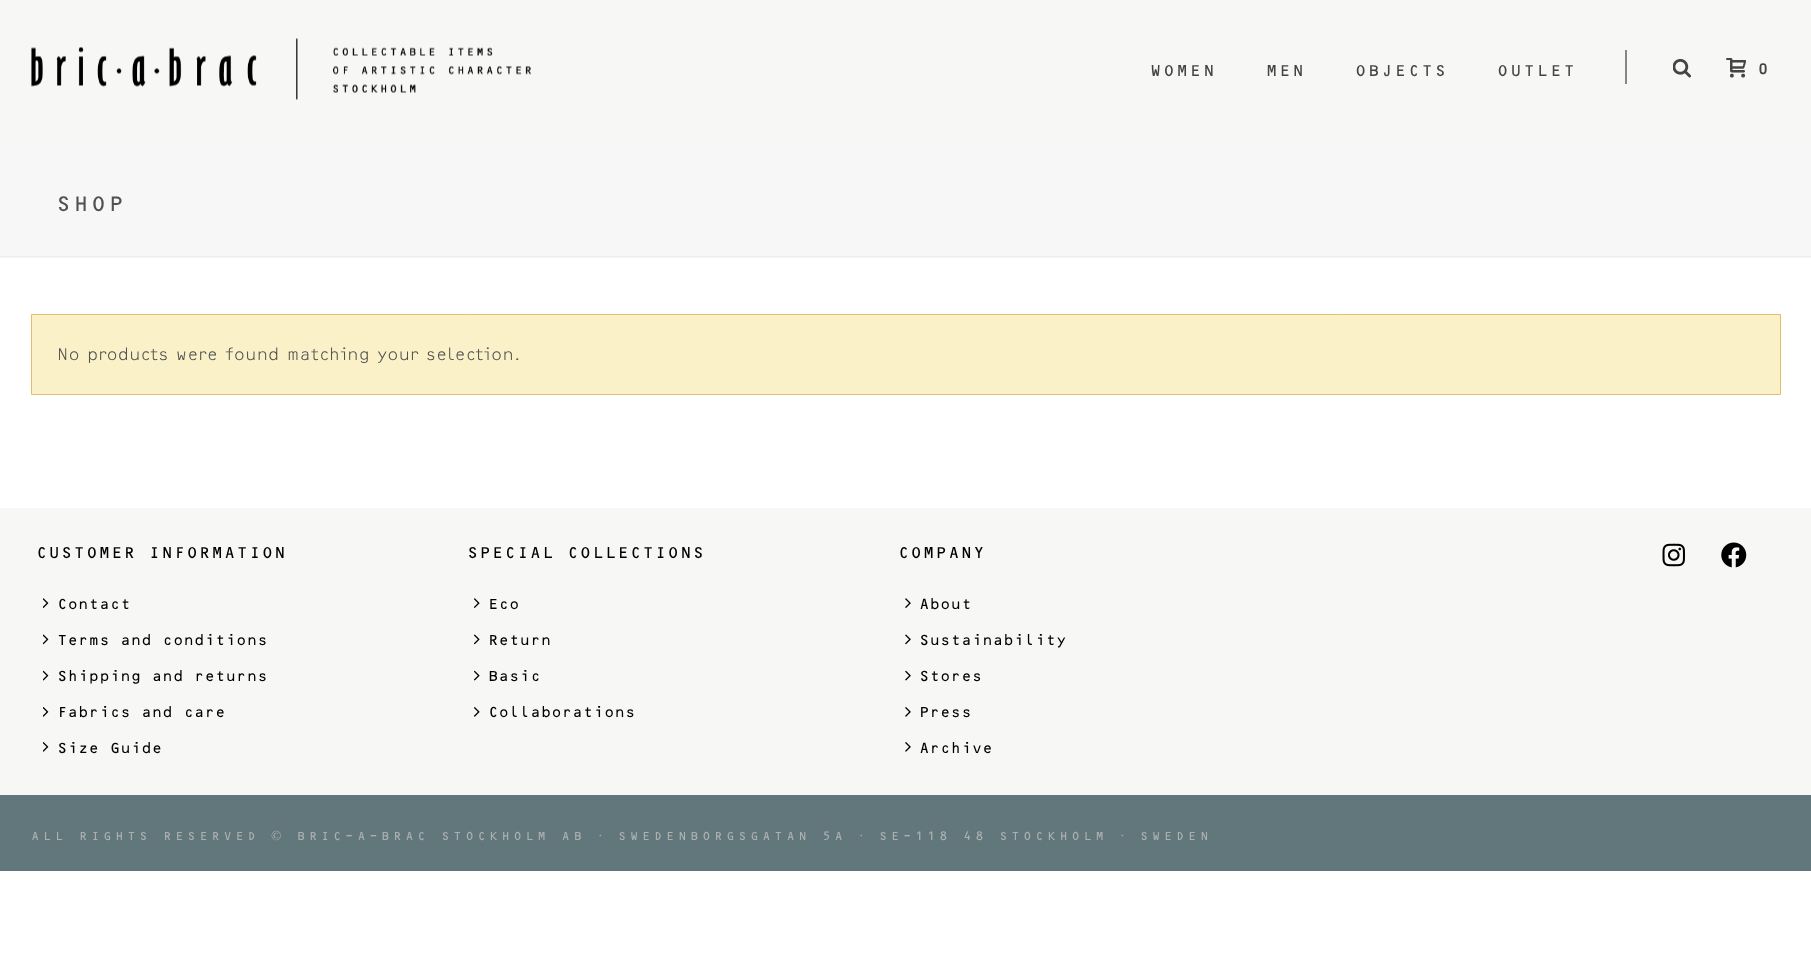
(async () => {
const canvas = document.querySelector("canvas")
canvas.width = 1811
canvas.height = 959
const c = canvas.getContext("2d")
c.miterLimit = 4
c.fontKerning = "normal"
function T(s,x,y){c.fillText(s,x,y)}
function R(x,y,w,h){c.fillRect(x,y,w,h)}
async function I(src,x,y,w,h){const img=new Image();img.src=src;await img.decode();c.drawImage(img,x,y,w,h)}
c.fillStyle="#fff"
R(0,0,1811,959)
c.fillStyle="#f7f7f7"
R(0,138,1811,120)
c.fillStyle="#ededed"
R(0,256,1811,1)
c.fillStyle="#f7f7f5"
R(0,0,1811,138)
await I("1.png",31,38,501,62)
c.letterSpacing="2px"
c.font="18.75px 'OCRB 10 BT'"
c.fillStyle="#444"
T("WOMEN",1150,76)
T("MEN",1266,76)
T("OBJECTS",1355,76)
T("OUTLET",1497,76)
c.fillStyle="#868686"
R(1625,50,2,34)
await I("2.png",1673,58,18,20)
await I("3.png",1726,58,20,20)
c.letterSpacing="0px"
c.font="bold 16px 'OCRB 10 BT'"
c.fillStyle="#444"
T("0",1758,74)
c.letterSpacing="2.5px"
c.font="25px 'OCRB 10 BT'"
c.fillStyle="#515151"
T("SHOP",56,211)
c.fillStyle="#fbf1c8"
c.beginPath()
c.rect(31.5,314.5,1749,80)
c.fill()
c.strokeStyle="#e0c069"
c.stroke()
c.letterSpacing="0.2px"
c.font="17.5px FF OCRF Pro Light"
c.fillStyle="#515151"
T("No products were found matching your selection.",57,360)
c.fillStyle="#f7f7f5"
R(0,508,1811,287)
c.letterSpacing="1.25px"
c.font="18.75px 'OCRB 10 BT'"
c.fillStyle="#000"
T("CUSTOMER INFORMATION",36,558)
await I("4.png",43,598,6,10)
c.letterSpacing="0px"
c.font="17.5px 'OCRB 10 BT'"
T("Contact",57,609)
await I("5.png",43,634,6,11)
T("Terms and conditions",57,645)
await I("6.png",43,670,6,11)
T("Shipping and returns",57,681)
await I("7.png",43,707,6,10)
T("Fabrics and care",57,717)
await I("7.png",43,742,6,10)
T("Size Guide",57,753)
c.letterSpacing="1.25px"
c.font="18.75px 'OCRB 10 BT'"
T("SPECIAL COLLECTIONS",467,558)
await I("8.png",474,598,6,10)
c.letterSpacing="0px"
c.font="17.5px 'OCRB 10 BT'"
T("Eco",488,609)
await I("9.png",474,634,6,11)
T("Return",488,645)
await I("10.png",474,670,6,11)
T("Basic",488,681)
await I("11.png",474,707,6,10)
T("Collaborations",488,717)
c.letterSpacing="1.25px"
c.font="18.75px 'OCRB 10 BT'"
T("COMPANY",898,558)
await I("12.png",905,598,6,10)
c.letterSpacing="0px"
c.font="17.5px 'OCRB 10 BT'"
T("About",919,609)
await I("13.png",905,634,6,11)
T("Sustainability",919,645)
await I("14.png",905,670,6,11)
T("Stores",919,681)
await I("15.png",905,707,6,10)
T("Press",919,717)
await I("15.png",905,742,6,10)
T("Archive",919,753)
await I("16.png",1662,543,23,24)
await I("17.png",1721,542,26,26)
c.fillStyle="#62777b"
R(0,795,1811,76)
c.letterSpacing="3.75px"
c.font="13.75px 'OCRB 10 BT'"
c.fillStyle="#abb0b1"
T("ALL RIGHTS RESERVED",31,840)
c.font="13.75px Liberation Serif"
T("©",271,840)
c.font="13.75px 'OCRB 10 BT'"
T("BRIC-A-BRAC STOCKHOLM AB",297,840)
c.font="13.75px Liberation Serif"
T("·",598,840)
c.font="13.75px 'OCRB 10 BT'"
T("SWEDENBORGSGATAN 5A",618,840)
c.font="13.75px Liberation Serif"
T("·",859,840)
c.font="13.75px 'OCRB 10 BT'"
T("SE-118 48 STOCKHOLM",879,840)
c.font="13.75px Liberation Serif"
T("·",1120,840)
c.font="13.75px 'OCRB 10 BT'"
T("SWEDEN",1140,840)
})()
